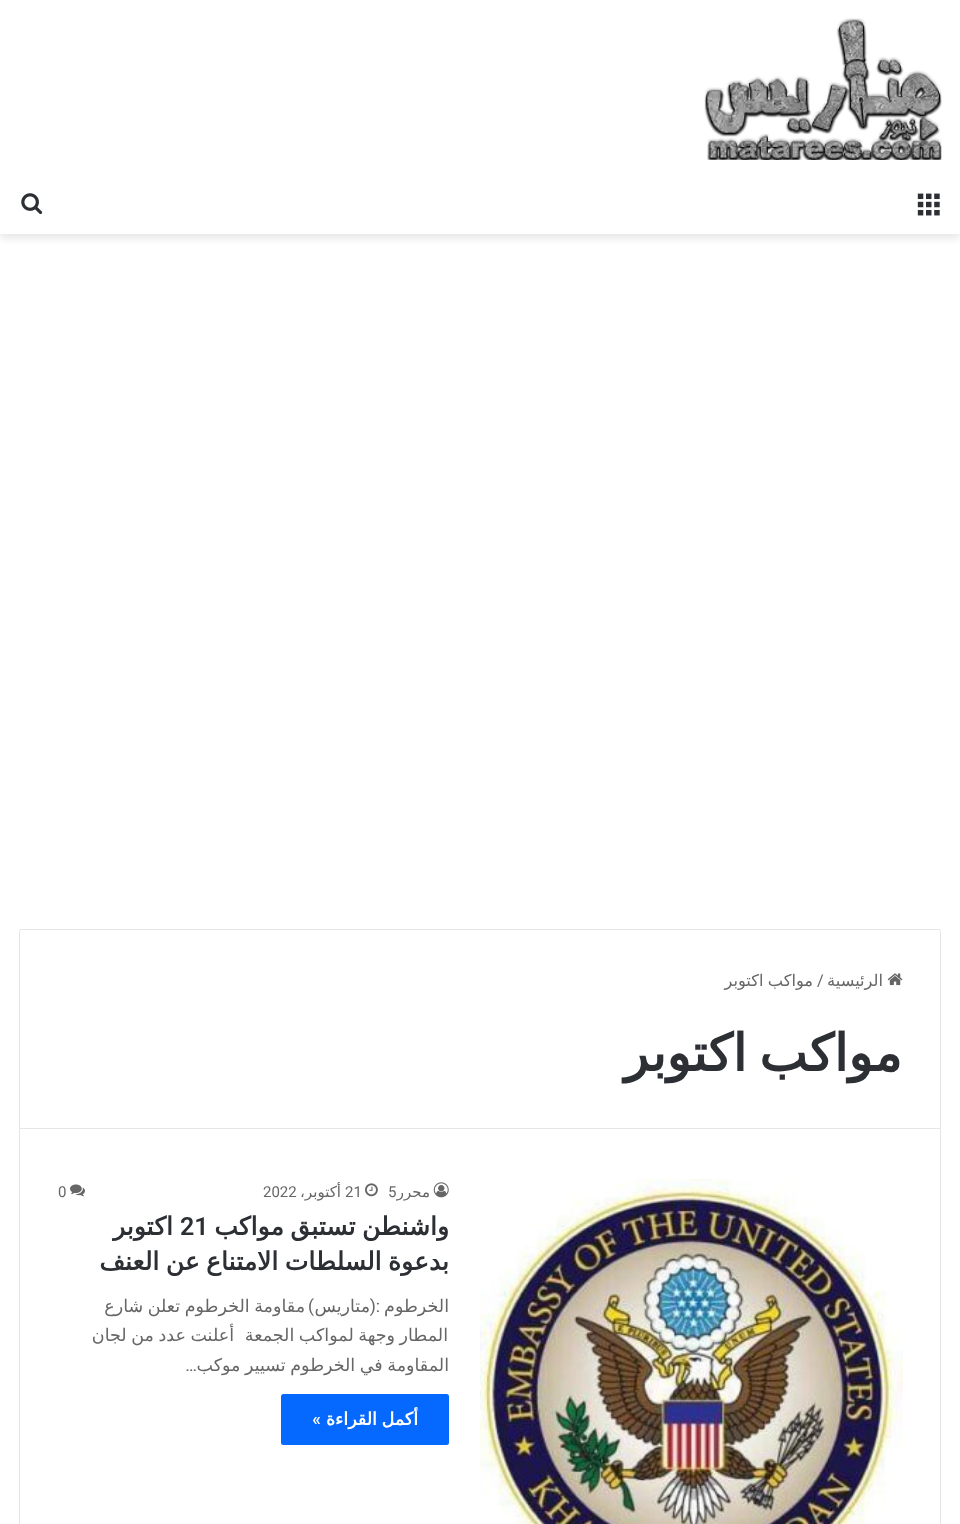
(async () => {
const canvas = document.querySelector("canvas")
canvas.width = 960
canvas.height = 1524
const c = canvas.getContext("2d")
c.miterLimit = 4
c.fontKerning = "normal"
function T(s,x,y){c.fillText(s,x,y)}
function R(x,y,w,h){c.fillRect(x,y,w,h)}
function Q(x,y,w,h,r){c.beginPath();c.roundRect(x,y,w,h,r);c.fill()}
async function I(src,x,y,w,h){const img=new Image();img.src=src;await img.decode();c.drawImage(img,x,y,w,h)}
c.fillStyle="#fff"
R(0,0,960,1524)
c.fillStyle="#0000001a"
c.filter="blur(4.5px)"
c.beginPath()
c.rect(0,4,960,234)
c.fill()
c.filter="none"
c.fillStyle="#fff"
R(0,0,960,234)
await I("1.png",704,18,238,142)
await I("2.png",917,193,23,23)
await I("3.png",21,193,22,22)
c.beginPath()
c.roundRect(19.5,929.5,921,199,[2,2,0,0])
c.strokeStyle="#e6e6e6"
c.stroke()
await I("4.png",887,973,16,13)
c.direction="rtl"
c.font="16.25px DejaVu Sans"
c.fillStyle="#666"
T("الرئيسية",883,986)
c.direction="ltr"
c.font="16.25px Roboto"
T("/",817,986)
c.wordSpacing="-1px"
c.direction="rtl"
c.font="16.25px DejaVu Sans"
T("مواكب اكتوبر",813,986)
c.wordSpacing="-4px"
c.font="bold 51.25px DejaVu Sans"
c.fillStyle="#2c2f34"
T("مواكب اكتوبر",902,1071)
c.fillStyle="#e6e6e6"
R(940,1129,1,395)
R(19,1129,1,395)
await I("5.png",480,1179,423,345)
await I("6.png",433,1182,16,16)
c.wordSpacing="0px"
c.direction="ltr"
c.font="15px Roboto"
c.fillStyle="#666"
T("5",388,1197)
c.direction="rtl"
c.font="15px DejaVu Sans"
T("محرر",430,1197)
await I("7.png",365,1183,13,14)
c.direction="ltr"
c.font="15px Roboto"
T("21",345,1197)
c.direction="rtl"
c.font="15px DejaVu Sans"
T("أكتوبر،",341,1197)
c.direction="ltr"
c.font="15px Roboto"
T("2022",263,1197)
await I("8.png",70,1184,15,13)
T("0",58,1197)
c.wordSpacing="-1.5px"
c.direction="rtl"
c.font="bold 25px DejaVu Sans"
c.fillStyle="#2c2f34"
T("واشنطن تستبق مواكب",449,1235)
c.wordSpacing="0px"
c.direction="ltr"
c.font="600 25px Roboto"
T("21",180,1235)
c.direction="rtl"
c.font="bold 25px DejaVu Sans"
T("اكتوبر",173,1235)
c.wordSpacing="-1.5px"
T("بدعوة السلطات الامتناع عن العنف",449,1270)
c.wordSpacing="0px"
c.font="17.5px DejaVu Sans"
c.fillStyle="#666"
T("الخرطوم",449,1312)
c.font="17.5px Roboto"
T(":(",380,1312)
c.font="17.5px DejaVu Sans"
T("متاريس",370,1312)
c.font="17.5px Roboto"
T(")",314,1312)
c.wordSpacing="-1px"
c.font="17.5px DejaVu Sans"
T("مقاومة الخرطوم تعلن شارع",305,1312)
T("المطار وجهة لمواكب الجمعة",448,1341)
T("أعلنت عدد من لجان",234,1341)
T("المقاومة في الخرطوم تسيير موكب",449,1371)
c.wordSpacing="0px"
c.font="17.5px Roboto"
T("…",197,1371)
c.fillStyle="#0669ff"
Q(281,1394,168,51,2.5)
c.wordSpacing="-1px"
c.font="bold 17.5px DejaVu Sans"
c.fillStyle="#fff"
T("أكمل القراءة",418,1425)
c.wordSpacing="0px"
c.font="600 17.5px Roboto"
T("»",321,1425)
})()
